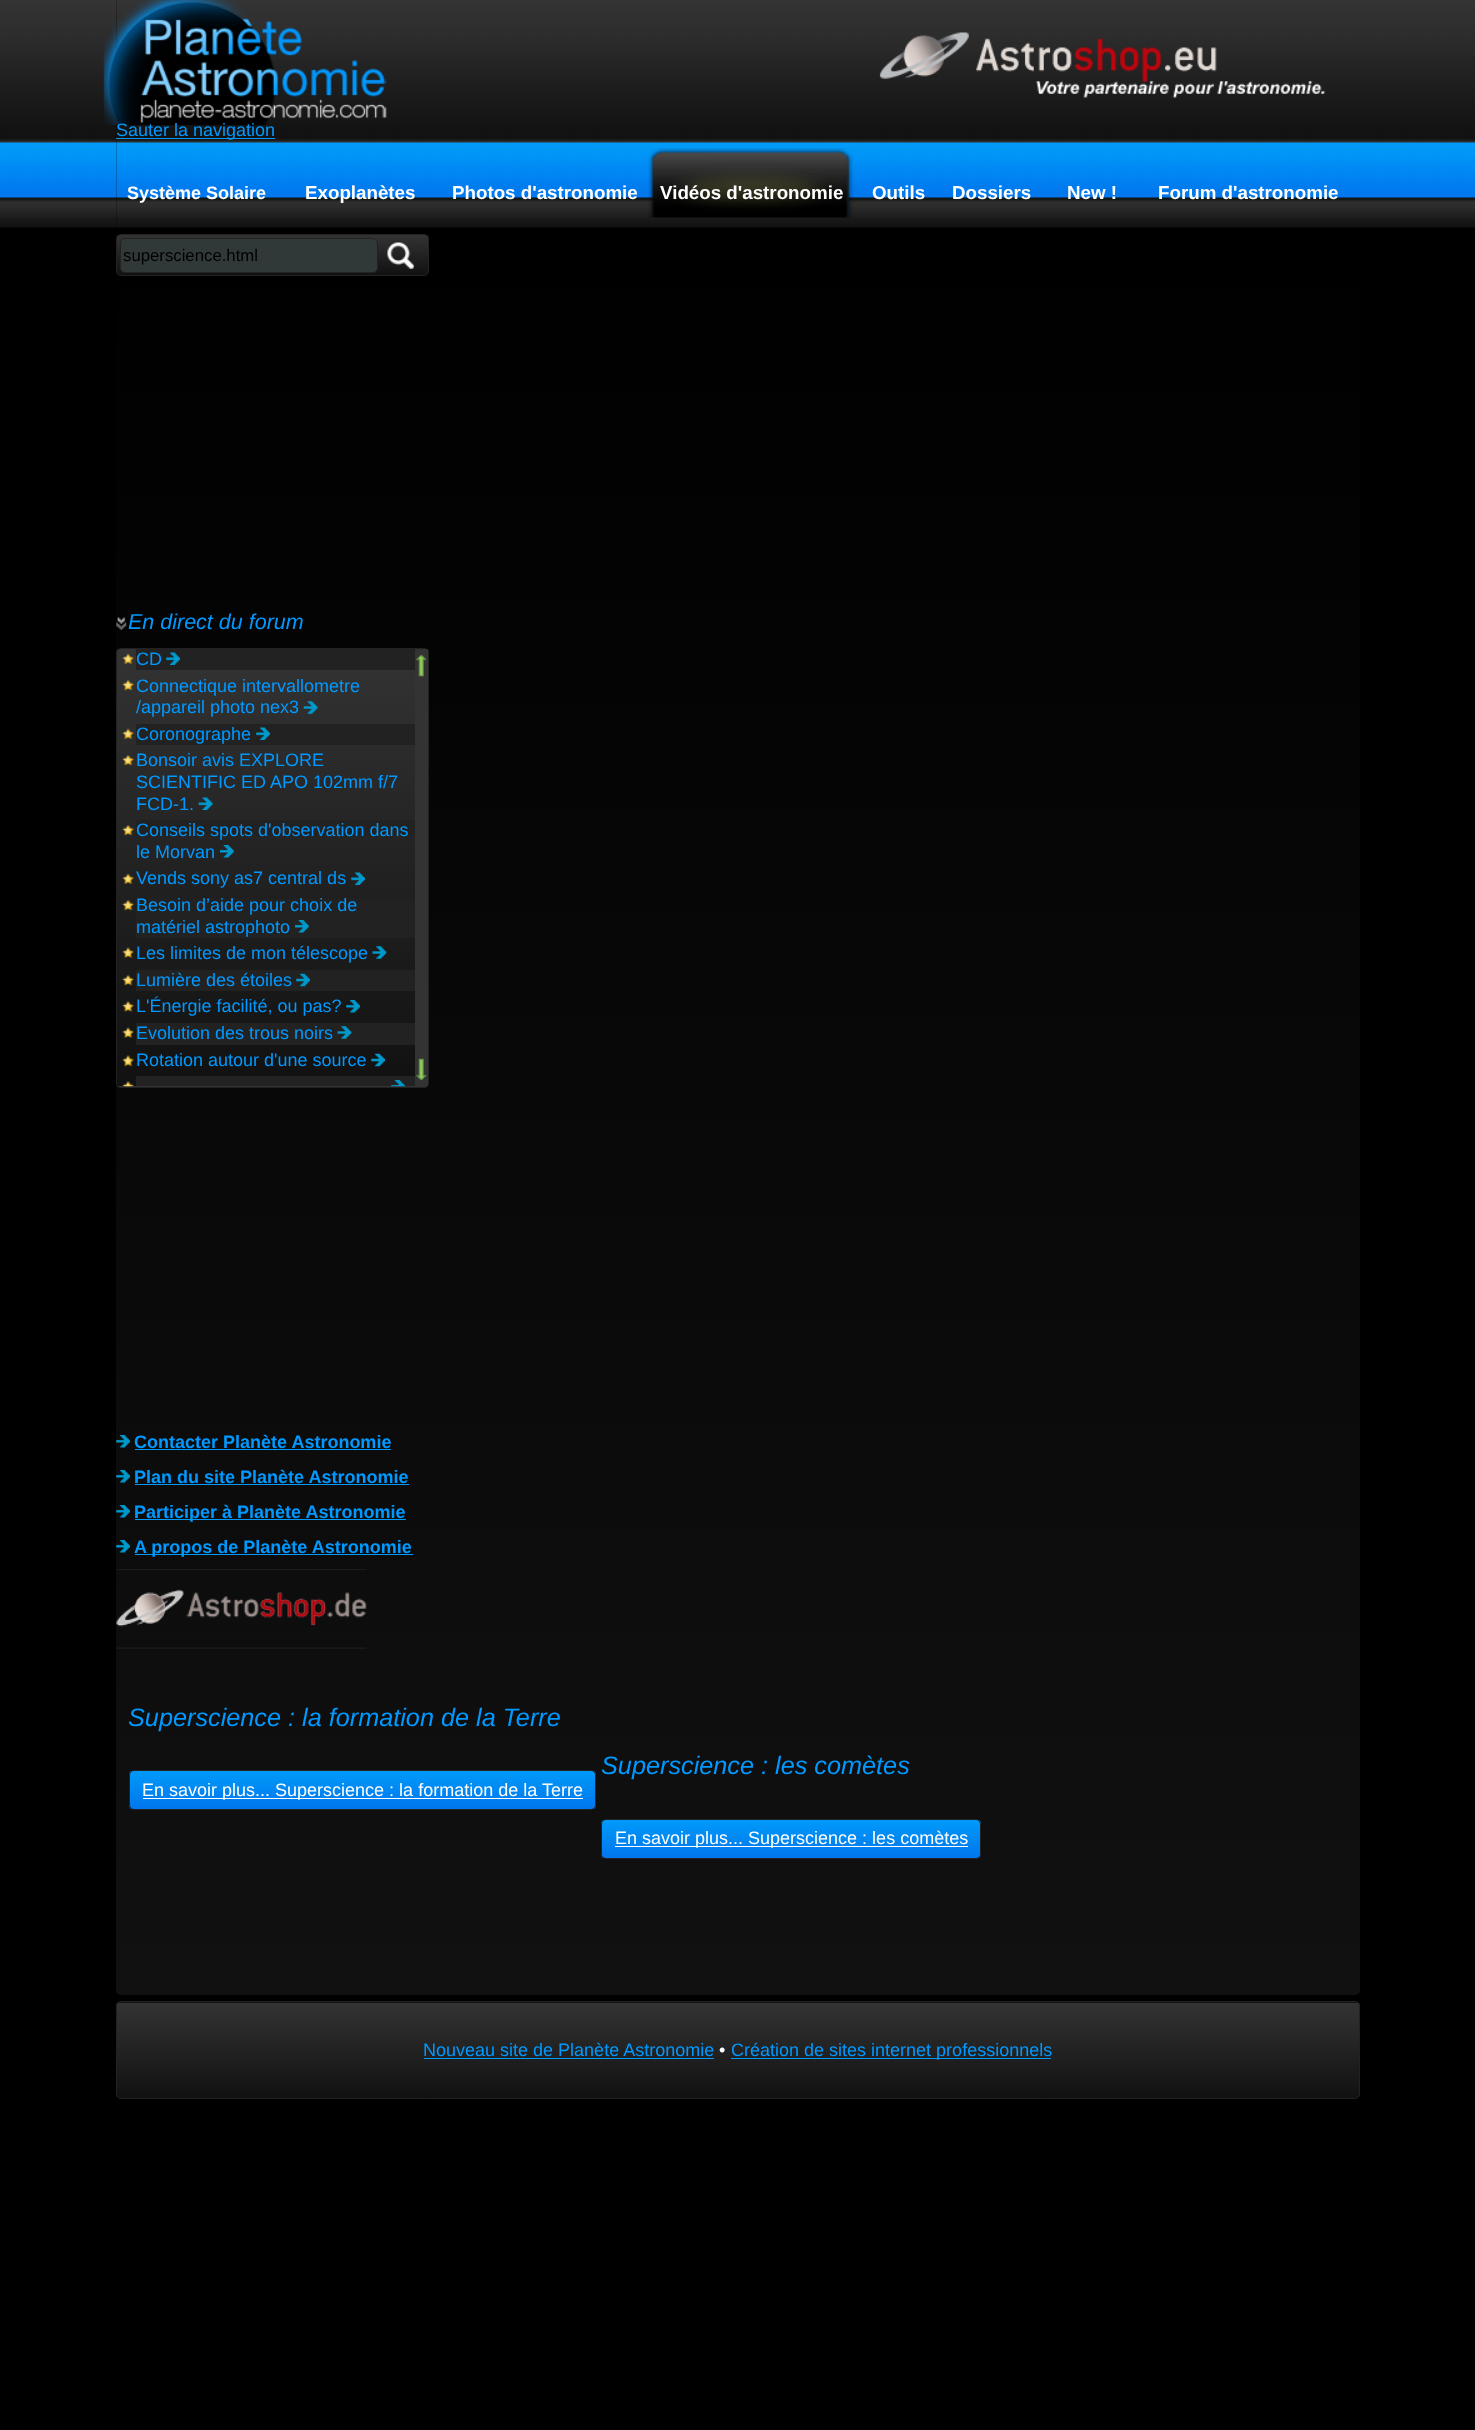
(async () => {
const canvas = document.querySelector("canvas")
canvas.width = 1475
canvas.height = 2430
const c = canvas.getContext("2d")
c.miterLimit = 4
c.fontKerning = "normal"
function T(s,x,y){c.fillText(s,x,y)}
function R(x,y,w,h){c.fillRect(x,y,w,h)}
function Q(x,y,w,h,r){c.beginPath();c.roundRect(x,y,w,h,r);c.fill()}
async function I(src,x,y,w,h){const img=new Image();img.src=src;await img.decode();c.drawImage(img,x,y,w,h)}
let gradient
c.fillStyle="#000"
R(0,0,1475,2430)
await I("1.png",0,0,1475,228)
R(116,0,1244,228)
await I("2.png",116,0,1244,228)
await I("3.png",103,0,284,125)
await I("4.png",879,32,447,66)
c.fillStyle="#09f"
R(116,138,159,1)
c.font="18px Liberation Sans"
T("Sauter la navigation",116,136)
c.font="bold 18px Liberation Sans"
c.fillStyle="#fff"
T("Système Solaire",127,199)
c.font="bold 18.75px Liberation Sans"
T("Exoplanètes",305,199)
T("Photos d'astronomie",452,199)
await I("5.png",648,148,206,70)
T("Vidéos d'astronomie",660,199)
T("Outils",872,199)
T("Dossiers",952,199)
T("New !",1067,199)
T("Forum d'astronomie",1158,199)
gradient = c.createLinearGradient(738,234,738,1995)
gradient.addColorStop(0,"#000")
gradient.addColorStop(1,"#111")
c.fillStyle = gradient
Q(116,234,1244,1761,5)
c.save()
c.beginPath()
c.roundRect(116,234,313,42,5)
c.clip()
gradient = c.createLinearGradient(273,235,273,275)
gradient.addColorStop(0,"#333")
gradient.addColorStop(1,"#111")
c.fillStyle = gradient
R(116,235,313,40)
c.restore()
c.beginPath()
c.roundRect(116.5,234.5,312,41,4.5)
c.strokeStyle="#222"
c.stroke()
c.fillStyle="#303838"
c.beginPath()
c.roundRect(120.5,238.5,257,34,4.5)
c.fill()
c.stroke()
c.font="16.75px Liberation Sans"
c.fillStyle="#000"
T("superscience.html",123,261)
await I("6.png",387,241,27,28)
await I("7.png",116,617,11,13)
c.font="italic 21.5px Liberation Sans"
c.fillStyle="#09f"
T("En direct du forum",128,629)
c.save()
c.beginPath()
c.roundRect(116,648,313,440,5)
c.clip()
gradient = c.createLinearGradient(272,649,273,1086)
gradient.addColorStop(0,"#333")
gradient.addColorStop(1,"#111")
c.fillStyle = gradient
R(116,649,313,437)
gradient = c.createLinearGradient(272,1086,273,1524)
gradient.addColorStop(0,"#333")
gradient.addColorStop(1,"#111")
c.fillStyle = gradient
R(116,1086,313,2)
c.restore()
c.beginPath()
c.roundRect(116.5,648.5,312,439,4.5)
c.stroke()
await I("8.png",122,653,12,11)
c.fillStyle="#222"
R(136,649,279,21)
c.font="18px Liberation Sans"
c.fillStyle="#09f"
T("CD",136,665)
await I("9.png",166,652,14,13)
await I("10.png",122,680,12,11)
T("Connectique intervallometre",136,692)
T("/appareil photo nex3",136,713)
await I("11.png",303,701,15,13)
await I("12.png",122,728,12,11)
c.fillStyle="#222"
R(136,724,279,21)
c.fillStyle="#09f"
T("Coronographe",136,740)
await I("13.png",256,727,14,13)
await I("14.png",122,755,12,11)
T("Bonsoir avis EXPLORE",136,766)
T("SCIENTIFIC ED APO 102mm f/7",136,788)
T("FCD-1.",136,810)
await I("15.png",198,797,15,13)
await I("16.png",122,825,12,11)
c.fillStyle="#222"
R(136,820,279,16)
c.fillStyle="#09f"
T("Conseils spots d'observation dans",136,836)
T("le Morvan",136,858)
await I("17.png",220,845,14,13)
await I("18.png",122,873,12,11)
T("Vends sony as7 central ds",136,884)
await I("19.png",351,872,14,13)
await I("20.png",122,900,12,11)
c.fillStyle="#222"
R(136,899,279,39)
c.fillStyle="#09f"
T("Besoin d’aide pour choix de",136,911)
T("matériel astrophoto",136,933)
await I("17.png",295,920,14,13)
await I("21.png",122,947,12,11)
T("Les limites de mon télescope",136,959)
await I("22.png",372,946,15,13)
await I("23.png",122,975,12,11)
c.fillStyle="#222"
R(136,970,279,21)
c.fillStyle="#09f"
T("Lumière des étoiles",136,986)
await I("24.png",296,973,14,14)
await I("25.png",122,1001,12,11)
T("L'Énergie facilité, ou pas?",136,1012)
await I("26.png",346,1000,14,13)
await I("27.png",122,1027,12,11)
c.fillStyle="#222"
R(136,1023,279,22)
c.fillStyle="#09f"
T("Evolution des trous noirs",136,1039)
await I("28.png",337,1026,15,13)
await I("29.png",122,1055,12,12)
T("Rotation autour d'une source",136,1066)
await I("30.png",371,1053,14,14)
await I("31.png",122,1081,12,6)
c.fillStyle="#222"
R(136,1076,279,10)
await I("32.png",391,1080,14,7)
c.fillStyle="#333"
R(415,649,13,437)
await I("33.png",416,654,11,23)
await I("34.png",416,1058,11,23)
await I("35.png",116,1435,14,13)
c.font="bold 18px Liberation Sans"
c.fillStyle="#09f"
T("Contacter Planète Astronomie",134,1448)
R(135,1449,256,1)
await I("35.png",116,1470,14,13)
T("Plan du site Planète Astronomie",134,1483)
R(135,1484,274,1)
await I("35.png",116,1505,14,13)
R(135,1519,271,1)
T("Participer à Planète Astronomie",134,1518)
await I("36.png",116,1540,14,13)
R(135,1554,278,1)
T("A propos de Planète Astronomie",134,1553)
await I("37.png",116,1569,251,80)
c.font="italic 25.25px Liberation Sans"
T("Superscience : la formation de la Terre",128,1726)
c.save()
c.beginPath()
c.roundRect(129,1770,467,40,5)
c.clip()
gradient = c.createLinearGradient(363,1771,363,1809)
gradient.addColorStop(0,"#009af9")
gradient.addColorStop(1,"#0076ee")
c.fillStyle = gradient
R(129,1771,467,38)
c.restore()
c.beginPath()
c.roundRect(129.5,1770.5,466,39,4.5)
c.stroke()
c.fillStyle="#fff"
R(143,1798,440,1)
c.font="18px Liberation Sans"
T("En savoir plus... Superscience : la formation de la Terre",142,1796)
c.font="italic 25.25px Liberation Sans"
c.fillStyle="#09f"
T("Superscience : les comètes",601,1774)
c.save()
c.beginPath()
c.roundRect(601,1819,380,40,5)
c.clip()
gradient = c.createLinearGradient(791,1820,791,1858)
gradient.addColorStop(0,"#009af9")
gradient.addColorStop(1,"#0076ee")
c.fillStyle = gradient
R(601,1820,380,38)
c.restore()
c.beginPath()
c.roundRect(601.5,1819.5,379,39,4.5)
c.stroke()
c.fillStyle="#fff"
R(615,1846,353,1)
c.font="18px Liberation Sans"
T("En savoir plus... Superscience : les comètes",615,1844)
c.save()
c.beginPath()
c.roundRect(116,2001,1244,98,5)
c.clip()
gradient = c.createLinearGradient(738,1908,738,2003)
gradient.addColorStop(0,"#333")
gradient.addColorStop(1,"#111")
c.fillStyle = gradient
R(116,2001,1244,2)
gradient = c.createLinearGradient(738,2003,738,2098)
gradient.addColorStop(0,"#333")
gradient.addColorStop(1,"#111")
c.fillStyle = gradient
R(116,2003,1244,95)
c.restore()
c.beginPath()
c.roundRect(116.5,2001.5,1243,97,4.5)
c.stroke()
c.fillStyle="#09f"
T("Nouveau site de Planète Astronomie",423,2056)
R(424,2058,290,1)
c.fillStyle="#fff"
T("•",719,2056)
c.fillStyle="#09f"
R(731,2058,320,1)
T("Création de sites internet professionnels",731,2056)
})()
